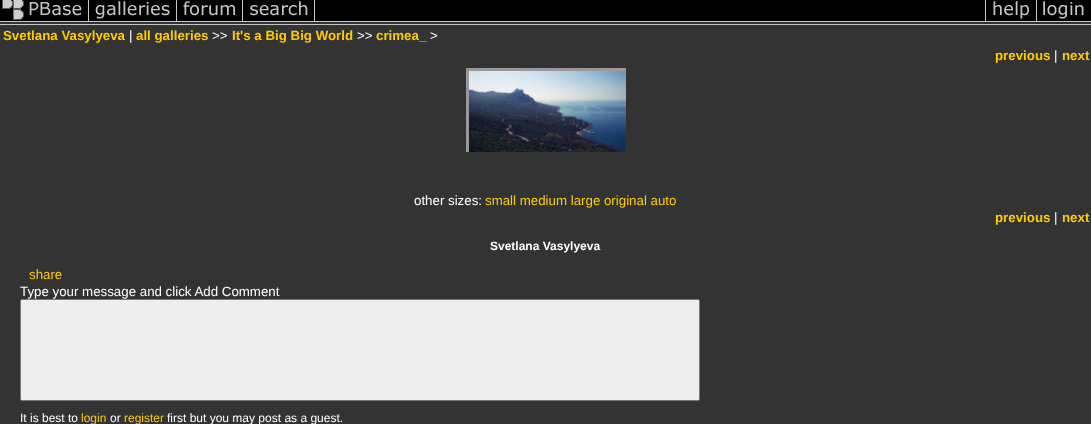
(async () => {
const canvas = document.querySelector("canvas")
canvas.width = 1091
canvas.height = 424
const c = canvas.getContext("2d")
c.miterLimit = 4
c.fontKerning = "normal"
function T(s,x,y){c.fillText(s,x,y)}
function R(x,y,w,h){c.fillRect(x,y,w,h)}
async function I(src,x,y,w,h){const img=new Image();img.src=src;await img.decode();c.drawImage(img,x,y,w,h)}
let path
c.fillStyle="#333"
R(0,0,1091,424)
await I("1.png",0,0,89,25)
await I("2.png",89,0,88,25)
await I("3.png",177,0,66,25)
await I("4.png",243,0,72,25)
await I("5.png",315,0,670,25)
await I("6.png",985,0,52,25)
await I("7.png",1037,0,54,25)
c.font="bold 13.3px Liberation Sans"
c.fillStyle="#fc0"
T("Svetlana Vasylyeva",3,40)
c.font="13.3px Liberation Sans"
c.fillStyle="#fff"
T("|",129,40)
c.font="bold 13.3px Liberation Sans"
c.fillStyle="#fc0"
T("all galleries",136,40)
c.font="13.3px Liberation Sans"
c.fillStyle="#fff"
T(">>",212,40)
c.font="bold 13.3px Liberation Sans"
c.fillStyle="#fc0"
T("It's a Big Big World",232,40)
c.font="13.3px Liberation Sans"
c.fillStyle="#fff"
T(">>",357,40)
c.font="bold 13.3px Liberation Sans"
c.fillStyle="#fc0"
T("crimea_",376,40)
c.font="13.3px Liberation Sans"
c.fillStyle="#fff"
T(">",430,40)
c.font="bold 13.3px Liberation Sans"
c.fillStyle="#fc0"
T("previous",995,60)
c.font="13.3px Liberation Sans"
c.fillStyle="#fff"
T("|",1054,60)
c.font="bold 13.3px Liberation Sans"
c.fillStyle="#fc0"
T("next",1062,60)
c.save()
c.beginPath()
c.rect(466,68,160,84)
c.clip()
c.fillStyle="#999"
path = new Path2D("M466 68h164l-3 3h-158z")
c.fill(path)
path = new Path2D("M466 157v-89l3 3v83z")
c.fill(path)
c.restore()
await I("8.png",469,71,157,81)
c.font="13.3px Liberation Sans"
c.fillStyle="#fff"
T("other sizes:",414,205)
c.fillStyle="#fc0"
T("small medium large original auto",485,205)
c.font="bold 13.3px Liberation Sans"
T("previous",995,222)
c.font="13.3px Liberation Sans"
c.fillStyle="#fff"
T("|",1054,222)
c.font="bold 13.3px Liberation Sans"
c.fillStyle="#fc0"
T("next",1062,222)
c.font="bold 12px Liberation Sans"
c.fillStyle="#fff"
T("Svetlana Vasylyeva",490,250)
c.font="13.3px Liberation Sans"
c.fillStyle="#fc0"
T("share",29,279)
c.fillStyle="#fff"
T("Type your message and click Add Comment",20,296)
c.fillStyle="#eee"
c.beginPath()
c.roundRect(20.5,299.5,679,101,1.5)
c.fill()
c.strokeStyle="#767676"
c.stroke()
c.font="12px Liberation Sans"
c.fillStyle="#fff"
T("It is best to",20,422)
c.fillStyle="#fc0"
T("login",81,422)
c.fillStyle="#fff"
T("or",110,422)
c.fillStyle="#fc0"
T("register",124,422)
c.fillStyle="#fff"
T("first but you may post as a guest.",167,422)
})()
